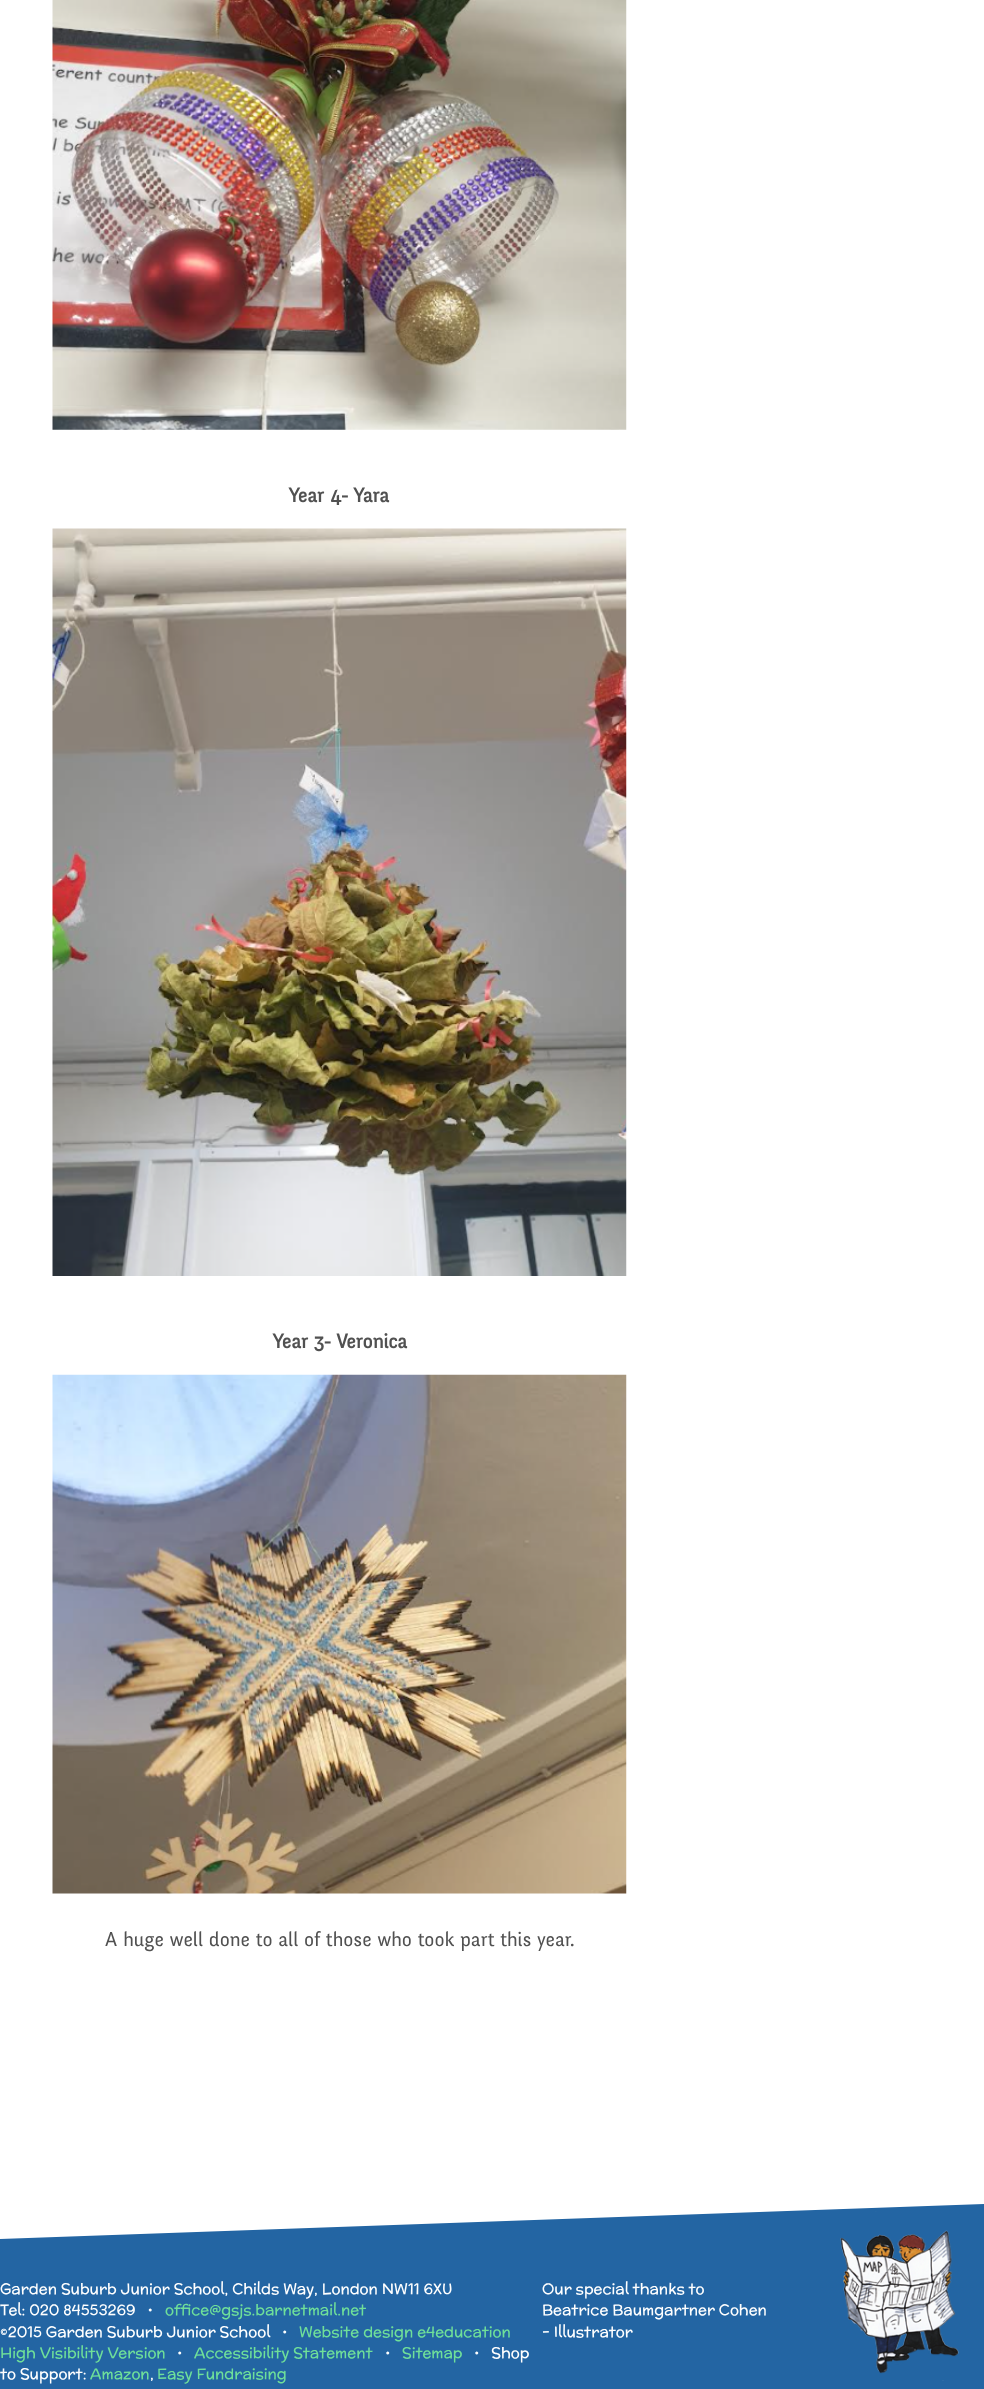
(async () => {
const canvas = document.querySelector("canvas")
canvas.width = 984
canvas.height = 2389
const c = canvas.getContext("2d")
c.miterLimit = 4
c.fontKerning = "normal"
function T(s,x,y){c.fillText(s,x,y)}
function R(x,y,w,h){c.fillRect(x,y,w,h)}
async function I(src,x,y,w,h){const img=new Image();img.src=src;await img.decode();c.drawImage(img,x,y,w,h)}
let path
c.fillStyle="#fff"
R(0,0,984,2389)
await I("1.png",52,0,575,430)
c.font="bold 20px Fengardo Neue"
c.fillStyle="#515151"
T("Year 4- Yara",289,502)
await I("2.png",52,528,575,748)
T("Year 3- Veronica",273,1348)
await I("3.png",52,1374,575,520)
c.font="20px Fengardo Neue"
T("A huge well done to all of those who took part this year.",105,1946)
c.fillStyle="#2365a3"
path = new Path2D("M0 2239l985-35v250l-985 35z")
c.fill(path)
c.font="15px McLaren"
c.fillStyle="#fff"
T("Garden Suburb Junior School, Childs Way, London NW11 6XU",0,2294)
T("Tel: 020 84553269   •",0,2315)
c.fillStyle="#6fdf99"
T("office@gsjs.barnetmail.net",165,2315)
c.fillStyle="#fff"
T("©2015 Garden Suburb Junior School   •",0,2337)
c.fillStyle="#6fdf99"
T("Website design e4education",299,2337)
T("High Visibility Version",0,2358)
c.fillStyle="#fff"
T("•",177,2358)
c.fillStyle="#6fdf99"
T("Accessibility Statement",194,2358)
c.fillStyle="#fff"
T("•",385,2358)
c.fillStyle="#6fdf99"
T("Sitemap",402,2358)
c.fillStyle="#fff"
T("•   Shop",474,2358)
T("to Support:",0,2379)
c.fillStyle="#6fdf99"
T("Amazon",90,2379)
c.fillStyle="#fff"
T(",",150,2379)
c.fillStyle="#6fdf99"
T("Easy Fundraising",157,2379)
c.fillStyle="#fff"
T("Our special thanks to",542,2294)
T("Beatrice Baumgartner Cohen",542,2315)
T("- Illustrator",542,2337)
await I("4.png",840,2211,119,170)
})()
